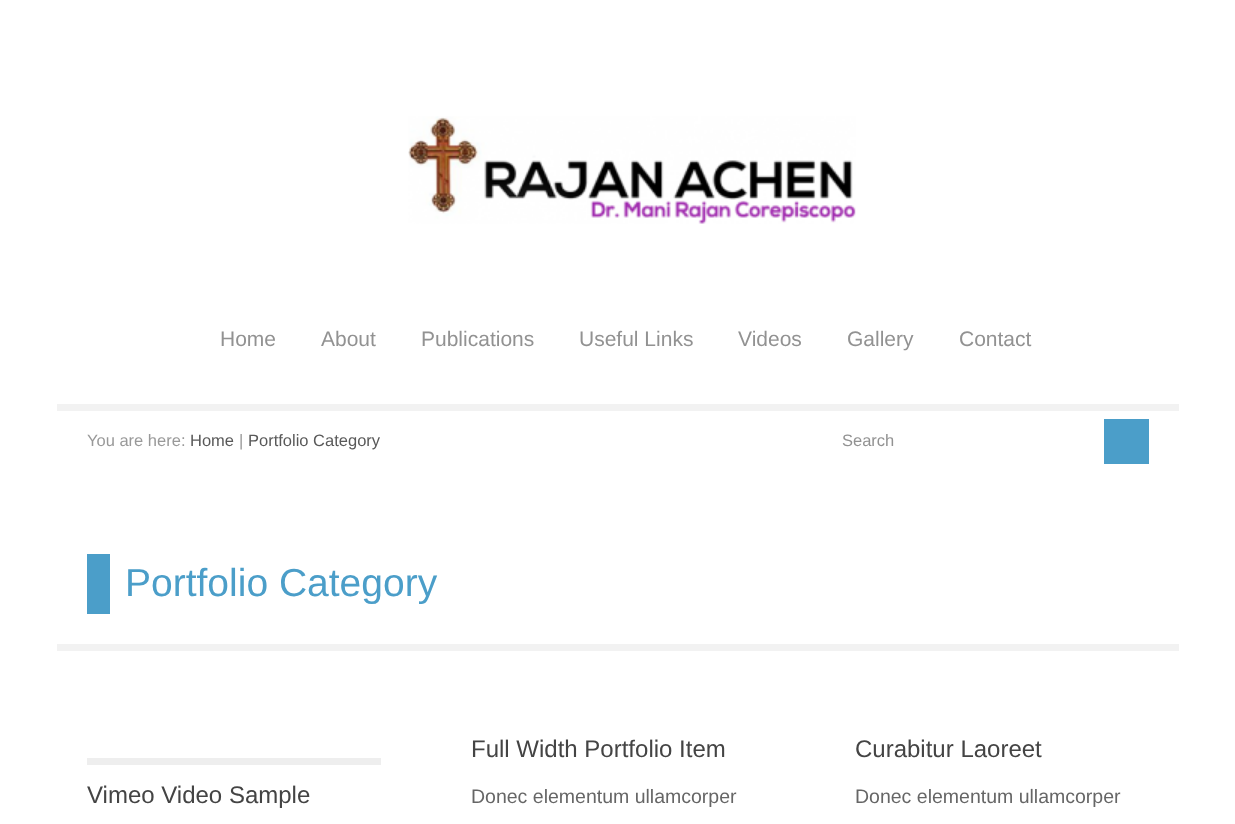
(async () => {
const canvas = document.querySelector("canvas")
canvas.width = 1235
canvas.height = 824
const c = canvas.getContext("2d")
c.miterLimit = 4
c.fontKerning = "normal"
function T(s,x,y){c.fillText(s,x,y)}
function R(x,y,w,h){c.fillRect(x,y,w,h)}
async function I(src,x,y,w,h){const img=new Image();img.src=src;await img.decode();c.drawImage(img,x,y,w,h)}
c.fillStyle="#fff"
R(0,0,1235,824)
await I("1.png",408,116,448,108)
c.font="21px Liberation Sans"
c.fillStyle="#929292"
T("Home",220,346)
T("About",321,346)
T("Publications",421,346)
T("Useful Links",579,346)
T("Videos",738,346)
T("Gallery",847,346)
T("Contact",959,346)
c.fillStyle="#f2f2f2"
R(57,404,1122,7)
c.font="16.5px Liberation Sans"
c.fillStyle="#999"
T("You are here:",87,446)
c.fillStyle="#595959"
T("Home",190,446)
c.fillStyle="#999"
T("|",239,446)
c.fillStyle="#595959"
T("Portfolio Category",248,446)
c.fillStyle="#929292"
T("Search",842,446)
c.fillStyle="#4b9ec9"
R(1104,419,45,45)
c.fillStyle="#f2f2f2"
R(57,644,1122,7)
c.fillStyle="#4b9ec9"
R(87,554,23,60)
c.font="39px Liberation Sans"
T("Portfolio Category",125,596)
c.fillStyle="#eee"
R(87,758,294,7)
c.font="24px Liberation Sans"
c.fillStyle="#444"
T("Vimeo Video Sample",87,803)
T("Full Width Portfolio Item",471,757)
c.font="19.5px Liberation Sans"
c.fillStyle="#666"
T("Donec elementum ullamcorper",471,803)
c.font="24px Liberation Sans"
c.fillStyle="#444"
T("Curabitur Laoreet",855,757)
c.font="19.5px Liberation Sans"
c.fillStyle="#666"
T("Donec elementum ullamcorper",855,803)
})()
